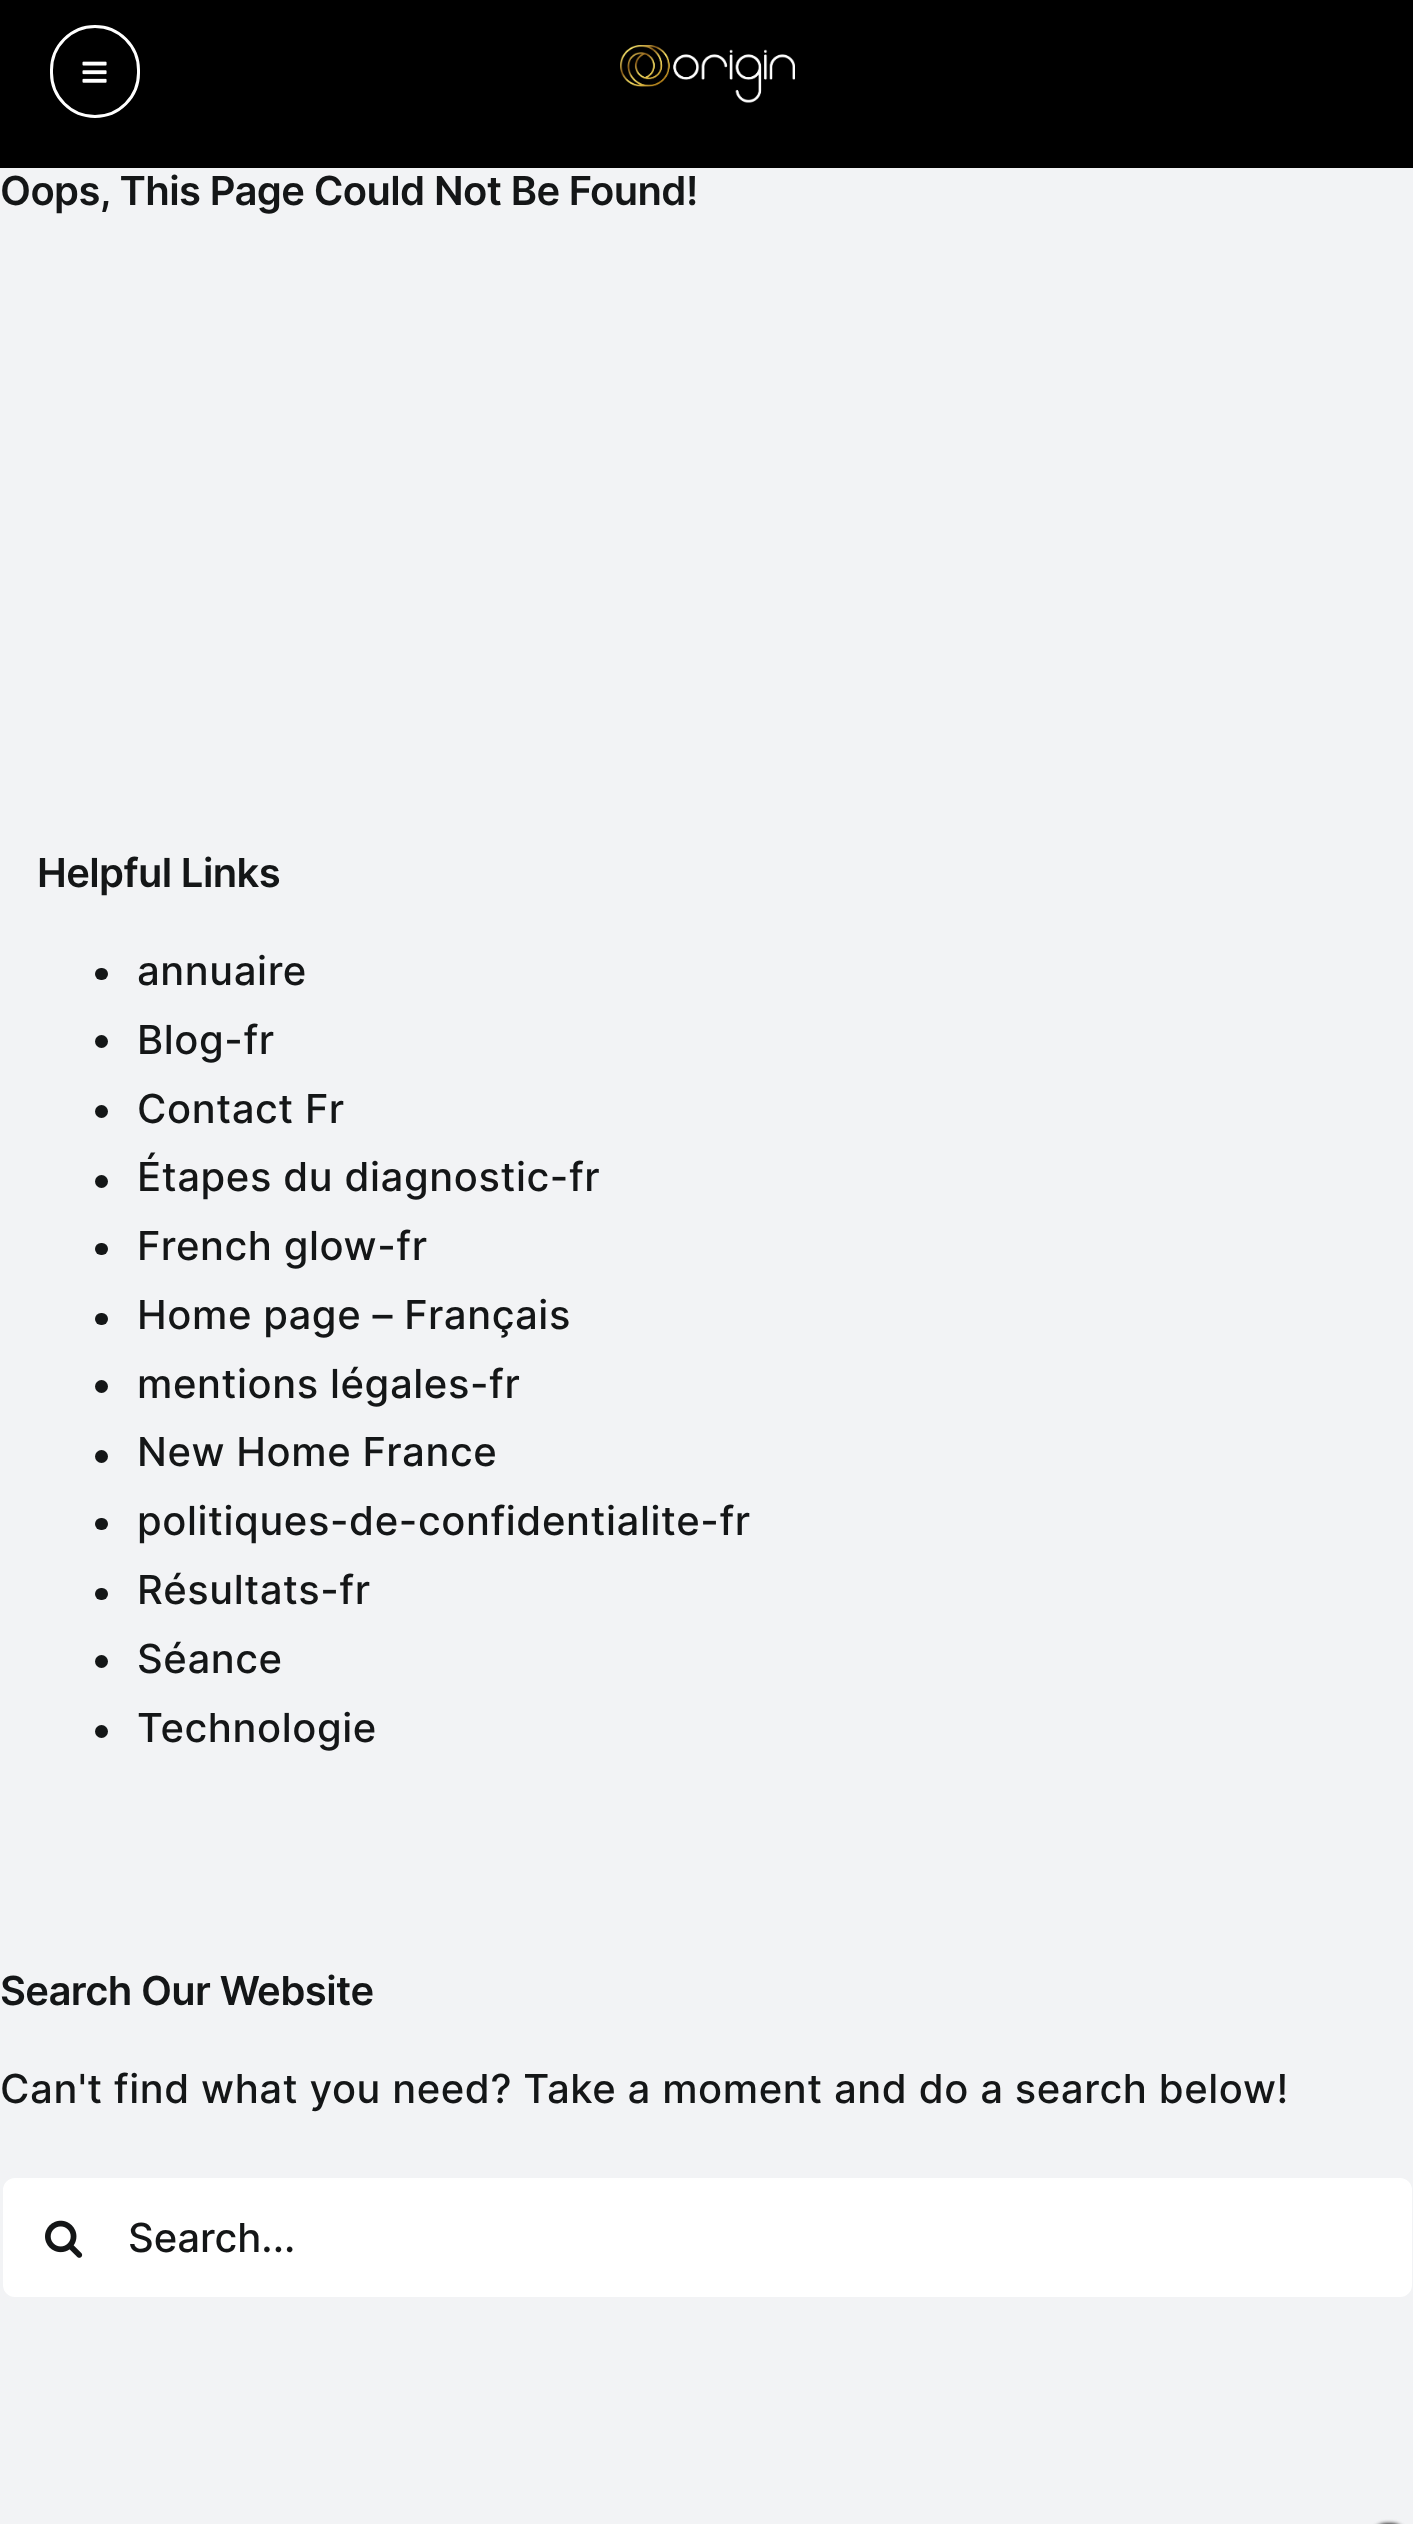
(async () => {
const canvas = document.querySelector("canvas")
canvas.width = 1413
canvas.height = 2524
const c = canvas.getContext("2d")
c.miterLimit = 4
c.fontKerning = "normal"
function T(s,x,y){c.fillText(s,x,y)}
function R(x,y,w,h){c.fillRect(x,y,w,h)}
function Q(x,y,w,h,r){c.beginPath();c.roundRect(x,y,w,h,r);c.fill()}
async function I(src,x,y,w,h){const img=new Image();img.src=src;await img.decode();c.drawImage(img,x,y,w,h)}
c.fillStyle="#f2f3f5"
R(0,0,1413,2524)
c.fillStyle="#000"
R(0,0,1413,168)
c.beginPath()
c.roundRect(51.5,26.5,87,90,43.5)
c.strokeStyle="#fff"
c.lineWidth=3
c.stroke()
await I("1.png",82,61,25,22)
await I("2.png",620,45,175,58)
c.letterSpacing="-0.6px"
c.font="600 40px Inter"
c.fillStyle="#141617"
T("Oops, This Page Could Not Be Found!",0,205)
T("Helpful Links",37,887)
Q(95,968,13,12,6)
c.letterSpacing="0.6px"
c.font="500 40px Inter"
T("annuaire",137,985)
c.beginPath()
c.arc(101.5,1041.5,6.5,0,7)
c.fill()
T("Blog-fr",137,1054)
c.beginPath()
c.arc(101.5,1111.5,6.5,0,7)
c.fill()
T("Contact Fr",137,1123)
c.beginPath()
c.arc(101.5,1181.5,6.5,0,7)
c.fill()
T("Étapes du diagnostic-fr",137,1191)
Q(95,1243,13,12,6)
T("French glow-fr",137,1260)
Q(95,1313,13,12,6)
T("Home page – Français",137,1329)
c.beginPath()
c.arc(101.5,1386.5,6.5,0,7)
c.fill()
T("mentions légales-fr",137,1398)
c.beginPath()
c.arc(101.5,1456.5,6.5,0,7)
c.fill()
T("New Home France",137,1466)
Q(95,1518,13,12,6)
T("politiques-de-confidentialite-fr",137,1535)
Q(95,1588,13,12,6)
T("Résultats-fr",137,1604)
c.beginPath()
c.arc(101.5,1661.5,6.5,0,7)
c.fill()
T("Séance",137,1673)
c.beginPath()
c.arc(101.5,1731.5,6.5,0,7)
c.fill()
T("Technologie",137,1742)
c.letterSpacing="-0.6px"
c.font="600 40px Inter"
T("Search Our Website",0,2005)
c.letterSpacing="0.6px"
c.font="500 40px Inter"
T("Can't find what you need? Take a moment and do a search below!",0,2103)
c.fillStyle="#fff"
c.beginPath()
c.roundRect(1.5,2176.5,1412,122,13.5)
c.fill()
c.strokeStyle="#f2f3f5"
c.stroke()
await I("3.png",45,2220,38,38)
c.letterSpacing="0px"
c.fillStyle="#141617"
T("Search...",128,2252)
c.fillStyle="#000"
c.filter="blur(2.5px)"
c.beginPath()
c.roundRect(1375,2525,28,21,14)
c.fill()
c.filter="none"
c.filter="blur(2.5px)"
c.beginPath()
c.roundRect(1375,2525,28,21,14)
c.fill()
c.filter="none"
})()
